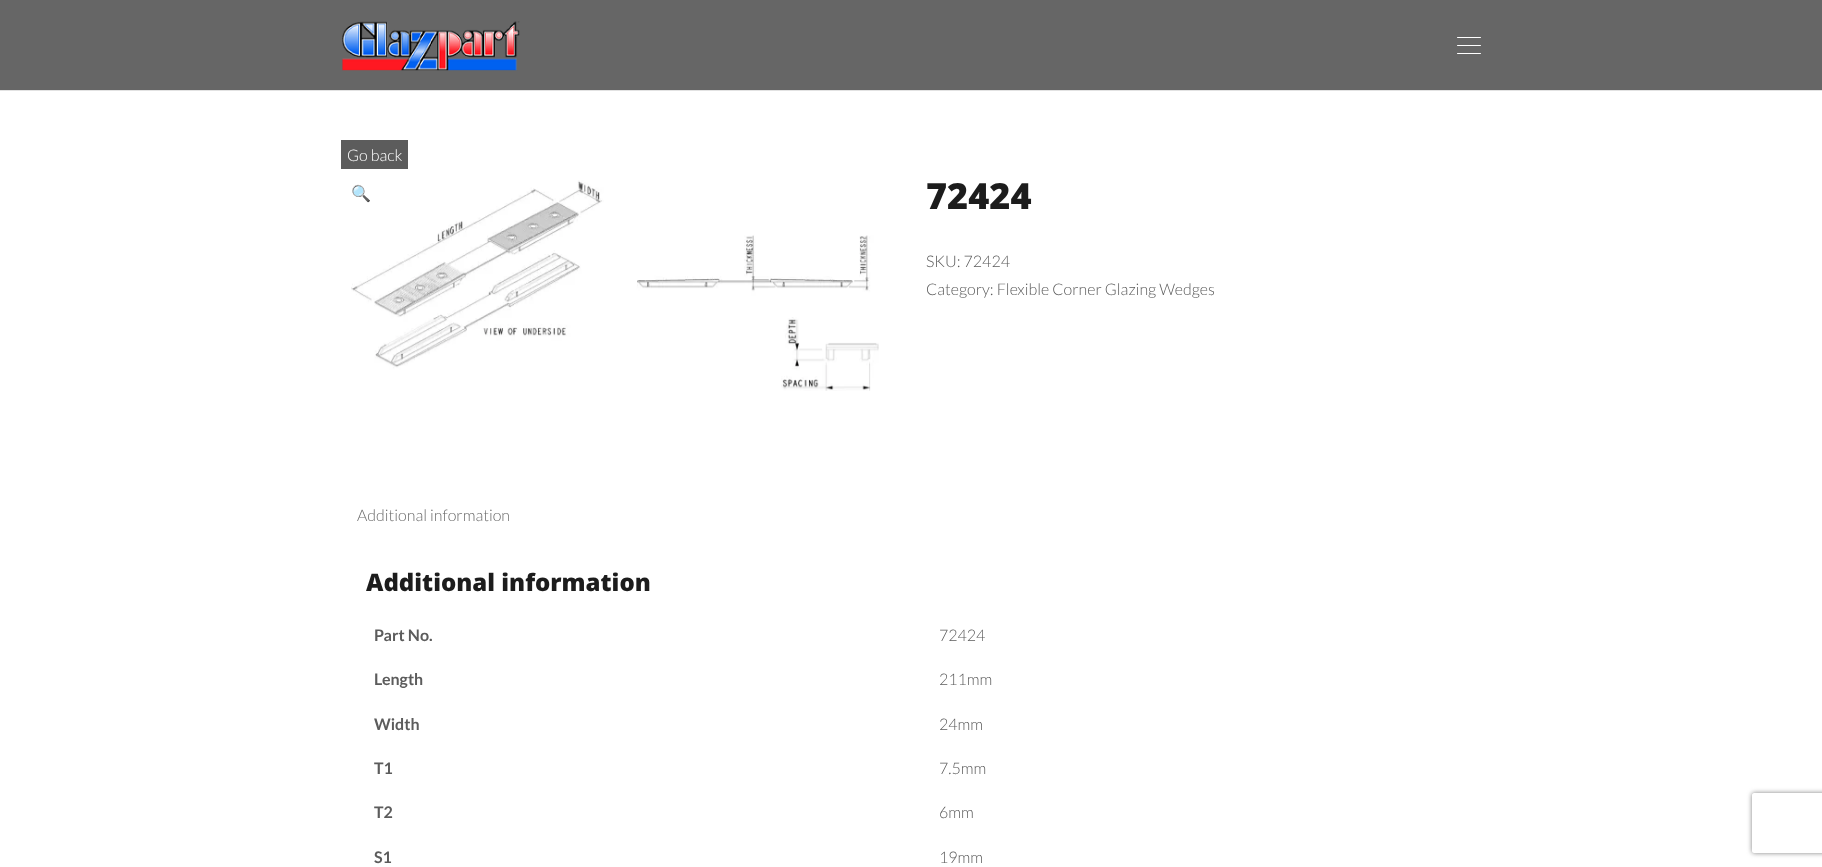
(async () => {
const canvas = document.querySelector("canvas")
canvas.width = 1822
canvas.height = 867
const c = canvas.getContext("2d")
c.miterLimit = 4
c.fontKerning = "normal"
function T(s,x,y){c.fillText(s,x,y)}
function R(x,y,w,h){c.fillRect(x,y,w,h)}
function Q(x,y,w,h,r){c.beginPath();c.roundRect(x,y,w,h,r);c.fill()}
async function I(src,x,y,w,h){const img=new Image();img.src=src;await img.decode();c.drawImage(img,x,y,w,h)}
let path
c.fillStyle="#fff"
R(0,0,1822,867)
c.fillStyle="#e2e2e2"
R(0,90,1822,1)
c.fillStyle="#666"
R(0,0,1822,90)
await I("1.png",342,21,178,50)
c.fillStyle="#fff"
Q(1457,37,24,1,.5)
Q(1457,45,24,1,.5)
Q(1457,53,24,1,.5)
c.fillStyle="#5c5c5c"
R(341,140,67,29)
c.font="300 16px Lato"
c.fillStyle="#fff"
T("Go back",347,161)
await I("2.png",351,180,528,211)
c.font="16px Noto Color Emoji"
c.fillStyle="#5c5c5c"
T("🔍",351,199)
c.font="800 36px Open Sans"
c.fillStyle="#1c1c1c"
T("72424",926,209)
c.font="300 16px Lato"
c.fillStyle="#5c5c5c"
T("SKU: 72424",926,267)
T("Category: Flexible Corner Glazing Wedges",926,295)
c.fillStyle="#6c6c6c"
T("Additional information",357,521)
c.font="800 24px Open Sans"
c.fillStyle="#1c1c1c"
T("Additional information",366,591)
c.font="bold 16px Lato"
c.fillStyle="#5c5c5c"
T("Part No.",374,641)
c.font="300 16px Lato"
T("72424",939,641)
c.font="bold 16px Lato"
T("Length",374,685)
c.font="300 16px Lato"
T("211mm",939,685)
c.font="bold 16px Lato"
T("Width",374,730)
c.font="300 16px Lato"
T("24mm",939,730)
c.font="bold 16px Lato"
T("T1",374,774)
c.font="300 16px Lato"
T("7.5mm",939,774)
c.font="bold 16px Lato"
T("T2",374,818)
c.font="300 16px Lato"
T("6mm",939,818)
c.font="bold 16px Lato"
T("S1",374,863)
c.font="300 16px Lato"
T("19mm",939,863)
c.save()
path = new Path2D("M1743 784h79v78h-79zm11 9h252c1 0 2 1 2 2v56c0 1-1 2-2 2h-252c-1 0-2-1-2-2v-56c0-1 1-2 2-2z")
c.clip(path,"evenodd")
c.fillStyle="#808080"
c.filter="blur(2.5px)"
c.beginPath()
c.roundRect(1752,793,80,60,2)
c.fill()
c.filter="none"
c.restore()
})()
